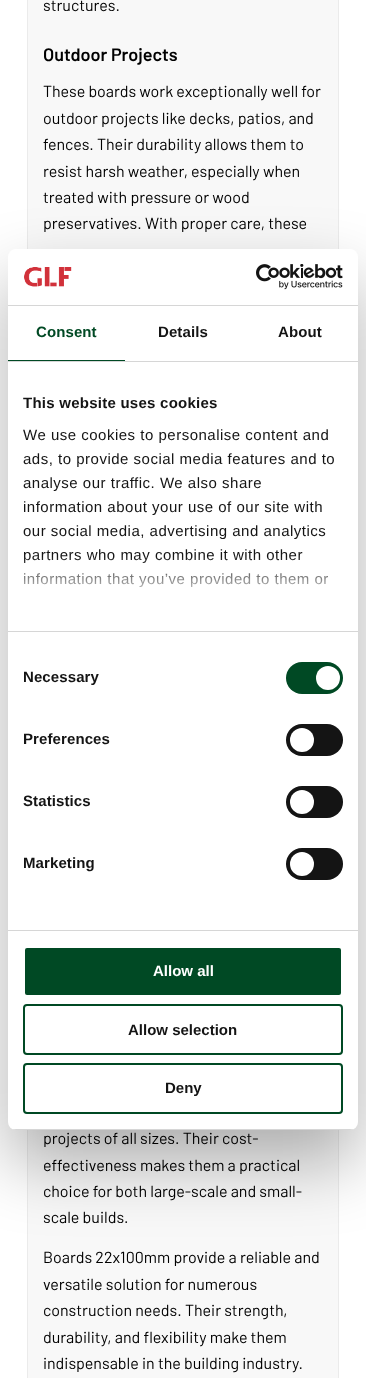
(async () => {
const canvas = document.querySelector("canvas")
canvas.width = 366
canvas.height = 1378
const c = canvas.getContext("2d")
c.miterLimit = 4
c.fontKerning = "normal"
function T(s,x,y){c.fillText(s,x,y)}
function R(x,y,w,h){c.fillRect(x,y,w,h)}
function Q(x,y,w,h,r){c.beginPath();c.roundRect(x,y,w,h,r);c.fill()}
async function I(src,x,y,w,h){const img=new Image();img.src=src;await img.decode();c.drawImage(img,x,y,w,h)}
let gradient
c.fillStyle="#fff"
R(0,0,366,1378)
c.fillStyle="#f8f8f8"
c.beginPath()
c.rect(27.5,-.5,311,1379)
c.fill()
c.strokeStyle="#ebebeb"
c.stroke()
c.font="16px Barlow"
c.fillStyle="#000"
T("structures.",43,11)
c.font="600 18px Barlow"
T("Outdoor Projects",43,61)
c.font="16px Barlow"
T("These boards work exceptionally well for",43,97)
T("outdoor projects like decks, patios, and",43,124)
T("fences. Their durability allows them to",43,150)
T("resist harsh weather, especially when",43,177)
T("treated with pressure or wood",43,203)
T("preservatives. With proper care, these",43,229)
T("projects of all sizes. Their cost-",43,1144)
T("effectiveness makes them a practical",43,1171)
T("choice for both large-scale and small-",43,1197)
T("scale builds.",43,1223)
T("Boards 22x100mm provide a reliable and",43,1263)
T("versatile solution for numerous",43,1290)
T("construction needs. Their strength,",43,1316)
T("durability, and flexibility make them",43,1343)
T("indispensable in the building industry.",43,1369)
c.fillStyle="#0000004d"
c.filter="blur(34px)"
c.beginPath()
c.roundRect(8,281,350,881,8)
c.fill()
c.filter="none"
c.fillStyle="#fff"
Q(8,249,350,881,8)
c.fillStyle="#d6d6d6"
R(8,305,350,1)
await I("1.png",24,267,48,20)
await I("2.png",256,264,87,26)
R(8,361,350,1)
c.fillStyle="#004924"
R(8,360,117,1)
c.letterSpacing="0.1px"
c.font="bold 15px Liberation Sans"
T("Consent",36,337)
c.fillStyle="#141414"
T("Details",158,337)
T("About",278,337)
c.fillStyle="#d6d6d6"
R(8,631,350,1)
c.letterSpacing="0.25px"
c.fillStyle="#141414"
T("This website uses cookies",23,408)
c.letterSpacing="0.5px"
c.font="15px Liberation Sans"
T("We use cookies to personalise content and",23,440)
T("ads, to provide social media features and to",23,464)
T("analyse our traffic. We also share",23,488)
T("information about your use of our site with",23,512)
T("our social media, advertising and analytics",23,536)
T("partners who may combine it with other",23,560)
T("information that you’ve provided to them or",23,584)
gradient = c.createLinearGradient(177,631,177,556)
gradient.addColorStop(0,"#fff")
gradient.addColorStop(.5,"#ffffffcc")
gradient.addColorStop(1,"#ffffff00")
c.fillStyle = gradient
R(24,557,305,31)
c.fillStyle="#d6d6d6"
R(8,930,350,1)
c.letterSpacing="0.1px"
c.font="bold 15px Liberation Sans"
c.fillStyle="#141414"
T("Necessary",23,682)
c.fillStyle="#004924"
Q(286,662,57,32,16)
c.fillStyle="#fff"
c.beginPath()
c.arc(328,678,12,0,7)
c.fill()
c.fillStyle="#141414"
T("Preferences",23,744)
Q(286,724,57,32,16)
c.fillStyle="#fff"
c.beginPath()
c.arc(302,740,12,0,7)
c.fill()
c.fillStyle="#141414"
T("Statistics",23,806)
Q(286,786,57,32,16)
c.fillStyle="#fff"
c.beginPath()
c.arc(302,802,12,0,7)
c.fill()
c.fillStyle="#141414"
T("Marketing",23,868)
Q(286,848,57,32,16)
c.fillStyle="#fff"
c.beginPath()
c.arc(302,864,12,0,7)
c.fill()
c.save()
c.beginPath()
c.roundRect(8,249,350,881,8)
c.clip()
c.fillStyle="#d6d6d6"
R(8,1129,350,1)
c.restore()
c.fillStyle="#004924"
c.beginPath()
c.roundRect(24,947,318,49,3)
c.fill()
c.strokeStyle="#fff"
c.lineWidth=2
c.stroke()
c.letterSpacing="0px"
c.fillStyle="#fff"
T("Allow all",153,976)
c.beginPath()
c.roundRect(24,1005,318,49,3)
c.strokeStyle="#004924"
c.stroke()
c.fillStyle="#141414"
T("Allow selection",128,1035)
c.beginPath()
c.roundRect(24,1064,318,49,3)
c.stroke()
T("Deny",165,1093)
})()
